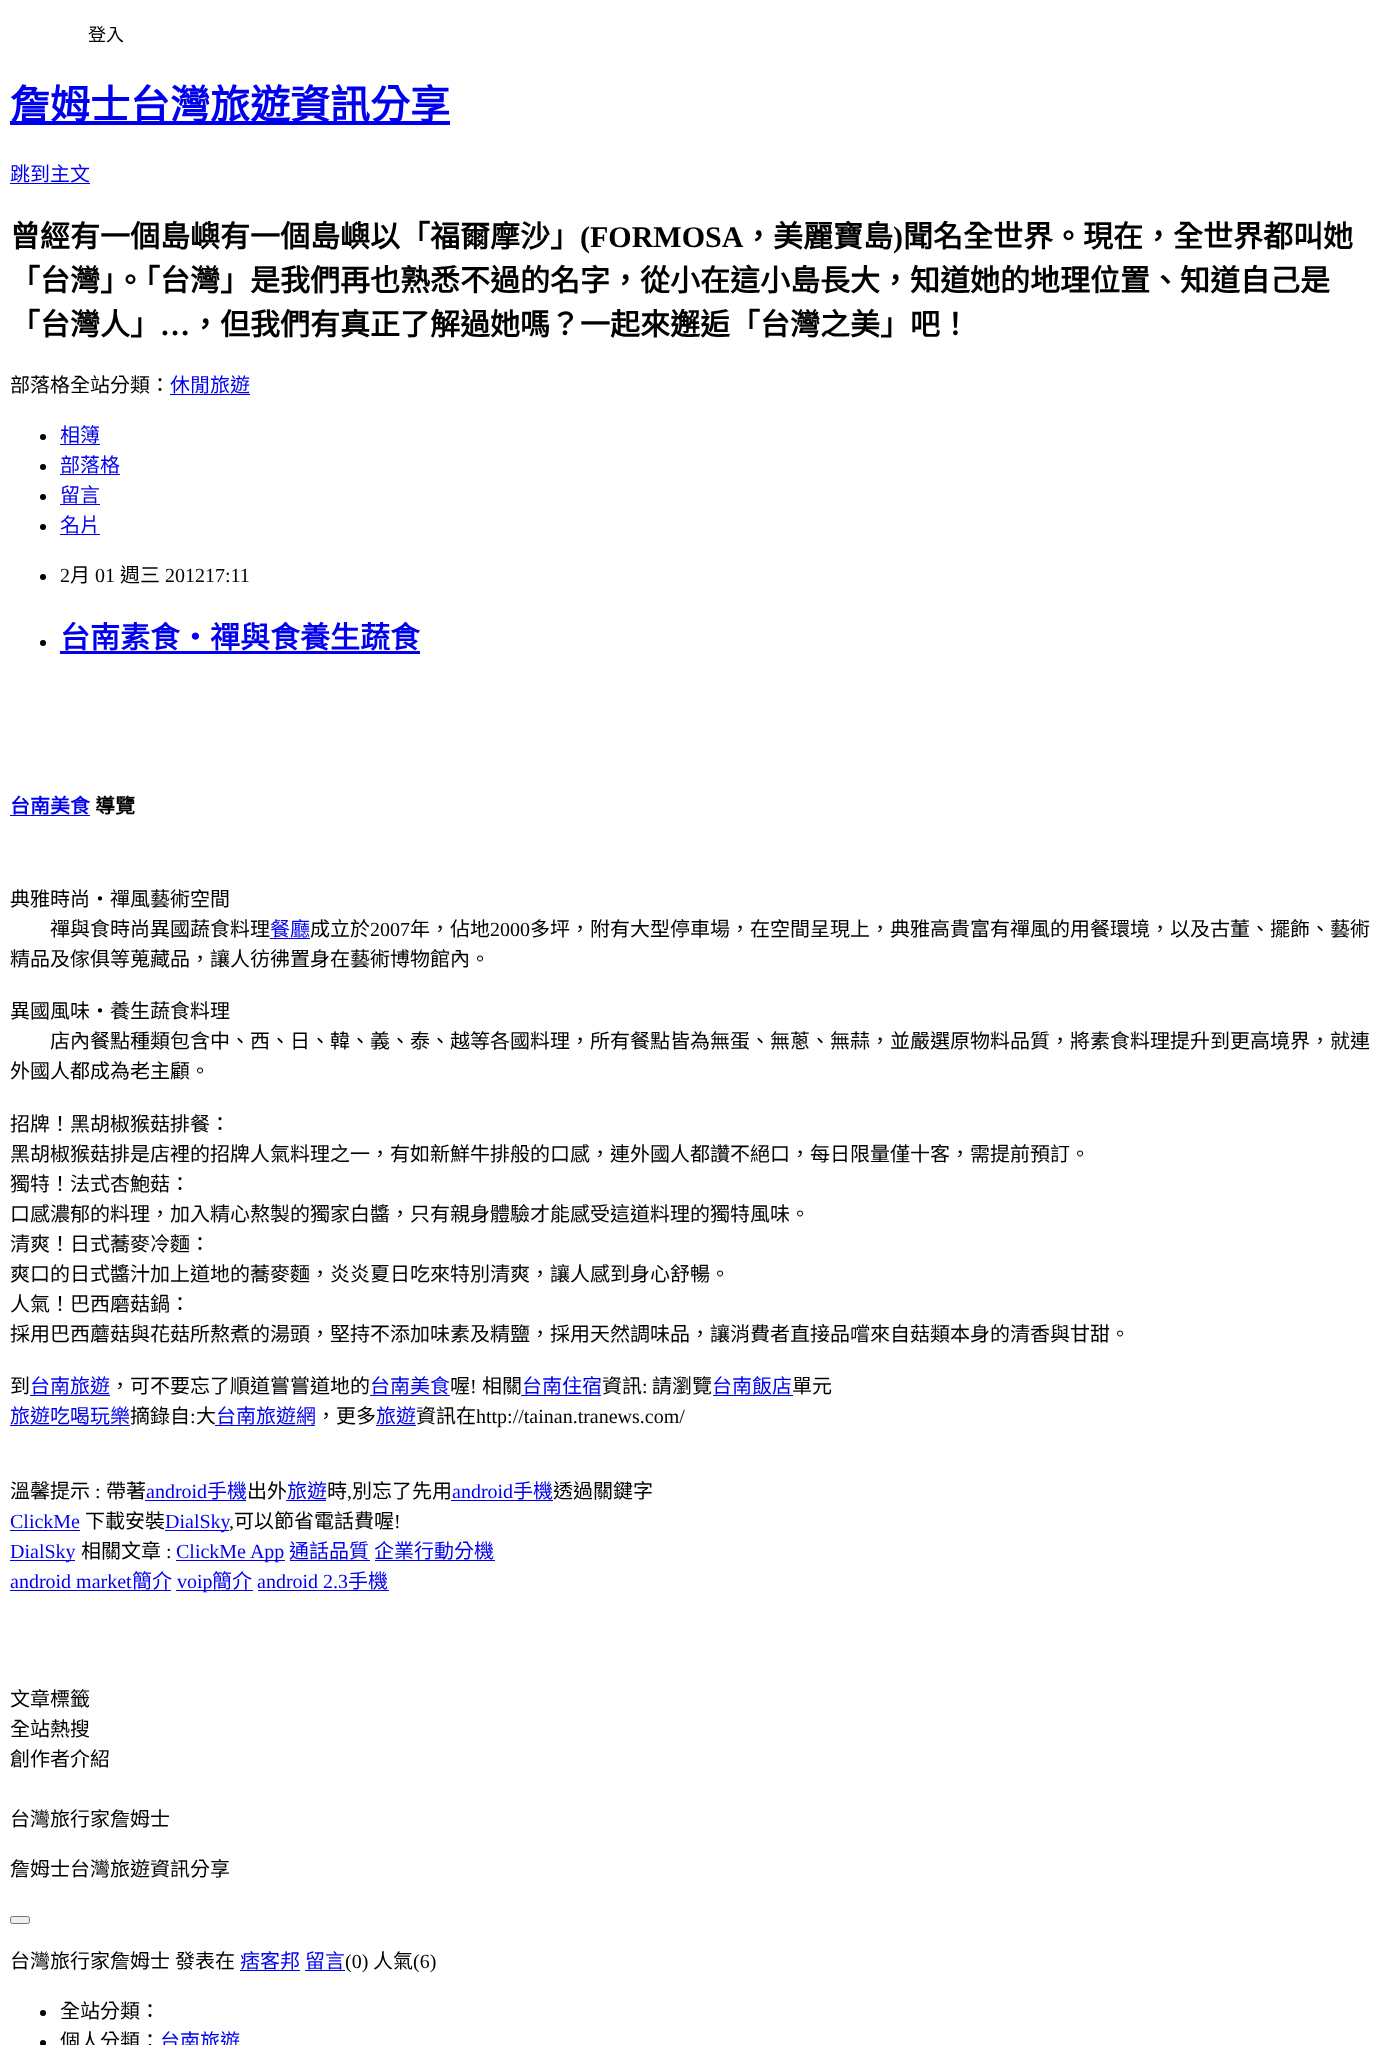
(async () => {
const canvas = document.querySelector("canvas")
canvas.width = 1386
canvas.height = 2045
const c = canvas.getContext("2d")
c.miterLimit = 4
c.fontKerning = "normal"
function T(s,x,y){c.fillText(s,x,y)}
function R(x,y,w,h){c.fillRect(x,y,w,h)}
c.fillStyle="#fff"
R(0,0,1386,2045)
c.font="18px Noto Sans CJK TC"
c.fillStyle="#000"
T("登入",88,41)
c.fillStyle="#00e"
R(10,121,440,4)
c.font="bold 40px Noto Sans CJK TC"
T("詹姆士台灣旅遊資訊分享",10,119)
c.font="20px Noto Sans CJK TC"
T("跳到主文",10,181)
R(10,183,80,1)
c.font="bold 30px Noto Sans CJK TC"
c.fillStyle="#000"
T("曾經有一個島嶼有一個島嶼以「福爾摩沙」",10,247)
c.font="bold 30px Liberation Serif"
T("(FORMOSA",580,247)
c.font="bold 30px Noto Sans CJK TC"
T("，美麗寶島",743,247)
c.font="bold 30px Liberation Serif"
T(")",893,247)
c.font="bold 30px Noto Sans CJK TC"
T("聞名全世界。現在，全世界都叫她",903,247)
T("「台灣」。「台灣」是我們再也熟悉不過的名字，從小在這小島長大，知道她的地理位置、知道自己是",10,291)
T("「台灣人」",10,335)
c.font="bold 30px Liberation Serif"
T("…",160,335)
c.font="bold 30px Noto Sans CJK TC"
T("，但我們有真正了解過她嗎？一起來邂逅「台灣之美」吧！",190,335)
c.font="20px Noto Sans CJK TC"
T("部落格全站分類：",10,392)
c.fillStyle="#00e"
T("休閒旅遊",170,392)
R(170,394,80,1)
c.fillStyle="#000"
c.beginPath()
c.arc(43,437,3,0,7)
c.fill()
c.fillStyle="#00e"
T("相簿",60,442)
R(60,444,40,1)
c.fillStyle="#000"
c.beginPath()
c.arc(43,467,3,0,7)
c.fill()
c.fillStyle="#00e"
T("部落格",60,472)
R(60,474,60,1)
c.fillStyle="#000"
c.beginPath()
c.arc(43,497,3,0,7)
c.fill()
c.fillStyle="#00e"
T("留言",60,502)
R(60,504,40,1)
c.fillStyle="#000"
c.beginPath()
c.arc(43,527,3,0,7)
c.fill()
c.fillStyle="#00e"
T("名片",60,532)
R(60,534,40,1)
c.fillStyle="#000"
c.beginPath()
c.arc(43,577,3,0,7)
c.fill()
c.font="20px Liberation Serif"
T("2",60,582)
c.font="20px Noto Sans CJK TC"
T("月",70,582)
c.font="20px Liberation Serif"
T("01",95,582)
c.font="20px Noto Sans CJK TC"
T("週三",120,582)
c.font="20px Liberation Serif"
T("201217:11",165,582)
c.beginPath()
c.arc(43,643,3,0,7)
c.fill()
c.font="bold 30px Noto Sans CJK TC"
c.fillStyle="#00e"
T("台南素食‧禪與食養生蔬食",60,648)
R(60,651,360,3)
c.font="bold 20px Noto Sans CJK TC"
T("台南美食",10,813)
R(10,815,80,1)
c.fillStyle="#000"
T("導覽",95,813)
c.font="20px Noto Sans CJK TC"
T("典雅時尚‧禪風藝術空間",10,906)
T("禪與食時尚異國蔬食料理",50,936)
c.fillStyle="#00e"
T("餐廳",270,936)
R(270,938,40,1)
c.fillStyle="#000"
T("成立於",310,936)
c.font="20px Liberation Serif"
T("2007",370,936)
c.font="20px Noto Sans CJK TC"
T("年，佔地",410,936)
c.font="20px Liberation Serif"
T("2000",490,936)
c.font="20px Noto Sans CJK TC"
T("多坪，附有大型停車場，在空間呈現上，典雅高貴富有禪風的用餐環境，以及古董、擺飾、藝術",530,936)
T("精品及傢俱等蒐藏品，讓人彷彿置身在藝術博物館內。",10,966)
T("異國風味‧養生蔬食料理",10,1018)
T("店內餐點種類包含中、西、日、韓、義、泰、越等各國料理，所有餐點皆為無蛋、無蔥、無蒜，並嚴選原物料品質，將素食料理提升到更高境界，就連",50,1048)
T("外國人都成為老主顧。",10,1078)
T("招牌！黑胡椒猴菇排餐：",10,1131)
T("黑胡椒猴菇排是店裡的招牌人氣料理之一，有如新鮮牛排般的口感，連外國人都讚不絕口，每日限量僅十客，需提前預訂。",10,1161)
T("獨特！法式杏鮑菇：",10,1191)
T("口感濃郁的料理，加入精心熬製的獨家白醬，只有親身體驗才能感受這道料理的獨特風味。",10,1221)
T("清爽！日式蕎麥冷麵：",10,1251)
T("爽口的日式醬汁加上道地的蕎麥麵，炎炎夏日吃來特別清爽，讓人感到身心舒暢。",10,1281)
T("人氣！巴西磨菇鍋：",10,1311)
T("採用巴西蘑菇與花菇所熬煮的湯頭，堅持不添加味素及精鹽，採用天然調味品，讓消費者直接品嚐來自菇類本身的清香與甘甜。",10,1341)
T("到",10,1393)
c.fillStyle="#00e"
T("台南旅遊",30,1393)
R(30,1395,80,1)
c.fillStyle="#000"
T("，可不要忘了順道嘗嘗道地的",110,1393)
c.fillStyle="#00e"
T("台南美食",370,1393)
R(370,1395,80,1)
c.fillStyle="#000"
T("喔",450,1393)
c.font="20px Liberation Serif"
T("!",470,1393)
c.font="20px Noto Sans CJK TC"
T("相關",482,1393)
c.fillStyle="#00e"
T("台南住宿",522,1393)
R(521,1395,80,1)
c.fillStyle="#000"
T("資訊",602,1393)
c.font="20px Liberation Serif"
T(":",642,1393)
c.font="20px Noto Sans CJK TC"
T("請瀏覽",652,1393)
c.fillStyle="#00e"
T("台南飯店",712,1393)
R(713,1395,80,1)
c.fillStyle="#000"
T("單元",792,1393)
c.fillStyle="#00e"
T("旅遊吃喝玩樂",10,1423)
R(10,1425,120,1)
c.fillStyle="#000"
T("摘錄自",130,1423)
c.font="20px Liberation Serif"
T(":",190,1423)
c.font="20px Noto Sans CJK TC"
T("大",196,1423)
c.fillStyle="#00e"
T("台南旅遊網",216,1423)
R(215,1425,100,1)
c.fillStyle="#000"
T("，更多",316,1423)
c.fillStyle="#00e"
T("旅遊",376,1423)
R(376,1425,40,1)
c.fillStyle="#000"
T("資訊在",416,1423)
c.font="20px Liberation Serif"
T("http://tainan.tranews.com/",476,1423)
c.font="20px Noto Sans CJK TC"
T("溫馨提示",10,1498)
c.font="20px Liberation Serif"
T(":",95,1498)
c.font="20px Noto Sans CJK TC"
T("帶著",106,1498)
c.font="20px Liberation Serif"
c.fillStyle="#00e"
T("android",146,1498)
R(145,1500,101,1)
c.font="20px Noto Sans CJK TC"
T("手機",207,1498)
c.fillStyle="#000"
T("出外",247,1498)
c.fillStyle="#00e"
T("旅遊",287,1498)
R(286,1500,40,1)
c.fillStyle="#000"
T("時",327,1498)
c.font="20px Liberation Serif"
T(",",347,1498)
c.font="20px Noto Sans CJK TC"
T("別忘了先用",352,1498)
c.font="20px Liberation Serif"
c.fillStyle="#00e"
T("android",452,1498)
R(451,1500,102,1)
c.font="20px Noto Sans CJK TC"
T("手機",513,1498)
c.fillStyle="#000"
T("透過關鍵字",553,1498)
c.font="20px Liberation Serif"
c.fillStyle="#00e"
T("ClickMe",10,1528)
R(10,1530,70,1)
c.font="20px Noto Sans CJK TC"
c.fillStyle="#000"
T("下載安裝",85,1528)
c.fillStyle="#00e"
R(165,1530,64,1)
c.font="20px Liberation Serif"
T("DialSky",165,1528)
c.fillStyle="#000"
T(",",229,1528)
c.font="20px Noto Sans CJK TC"
T("可以節省電話費喔",234,1528)
c.font="20px Liberation Serif"
T("!",394,1528)
c.fillStyle="#00e"
R(10,1560,65,1)
T("DialSky",10,1558)
c.font="20px Noto Sans CJK TC"
c.fillStyle="#000"
T("相關文章",81,1558)
c.font="20px Liberation Serif"
T(":",166,1558)
c.fillStyle="#00e"
R(176,1560,109,1)
T("ClickMe App",176,1558)
R(290,1560,80,1)
c.font="20px Noto Sans CJK TC"
T("通話品質",289,1558)
T("企業行動分機",374,1558)
R(375,1560,120,1)
c.font="20px Liberation Serif"
T("android market",10,1588)
R(10,1590,161,1)
c.font="20px Noto Sans CJK TC"
T("簡介",132,1588)
R(176,1590,77,1)
c.font="20px Liberation Serif"
T("voip",177,1588)
c.font="20px Noto Sans CJK TC"
T("簡介",212,1588)
c.font="20px Liberation Serif"
T("android 2.3",257,1588)
R(258,1590,131,1)
c.font="20px Noto Sans CJK TC"
T("手機",348,1588)
c.fillStyle="#000"
T("文章標籤",10,1706)
T("全站熱搜",10,1736)
T("創作者介紹",10,1766)
T("台灣旅行家詹姆士",10,1826)
T("詹姆士台灣旅遊資訊分享",10,1876)
c.fillStyle="#efefef"
c.beginPath()
c.roundRect(10.5,1916.5,19,7,2)
c.fill()
c.strokeStyle="#767676"
c.stroke()
c.fillStyle="#000"
T("台灣旅行家詹姆士",10,1968)
T("發表在",175,1968)
c.fillStyle="#00e"
T("痞客邦",240,1968)
R(240,1970,60,1)
T("留言",305,1968)
R(305,1970,40,1)
c.font="20px Liberation Serif"
c.fillStyle="#000"
T("(0)",345,1968)
c.font="20px Noto Sans CJK TC"
T("人氣",373,1968)
c.font="20px Liberation Serif"
T("(6)",413,1968)
c.beginPath()
c.arc(43,2013,3,0,7)
c.fill()
c.font="20px Noto Sans CJK TC"
T("全站分類：",60,2018)
c.beginPath()
c.arc(43,2043,3,0,7)
c.fill()
T("個人分類：",60,2048)
c.fillStyle="#00e"
T("台南旅遊",160,2048)
})()
